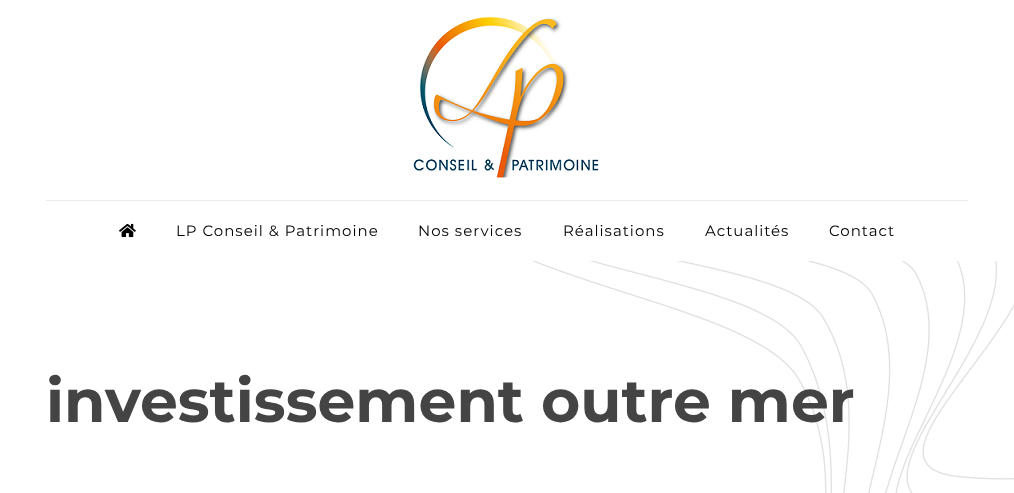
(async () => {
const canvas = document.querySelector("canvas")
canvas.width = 1014
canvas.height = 493
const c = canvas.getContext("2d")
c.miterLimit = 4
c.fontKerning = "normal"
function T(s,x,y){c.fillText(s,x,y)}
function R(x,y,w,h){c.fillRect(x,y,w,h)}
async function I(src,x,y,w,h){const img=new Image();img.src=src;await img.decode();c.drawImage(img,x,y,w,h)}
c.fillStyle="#fff"
R(0,0,1014,493)
await I("1.png",532,261,482,232)
c.fillStyle="#ebebeb"
R(46,200,922,1)
await I("2.png",413,16,186,162)
await I("3.png",119,223,17,15)
c.letterSpacing="1px"
c.font="15px Montserrat"
c.fillStyle="#000"
T("LP Conseil & Patrimoine",176,236)
T("Nos services",418,236)
T("Réalisations",563,236)
T("Actualités",705,236)
T("Contact",829,236)
c.letterSpacing="0px"
c.font="bold 60px Montserrat"
c.fillStyle="#444"
T("investissement outre mer",46,422)
})()
